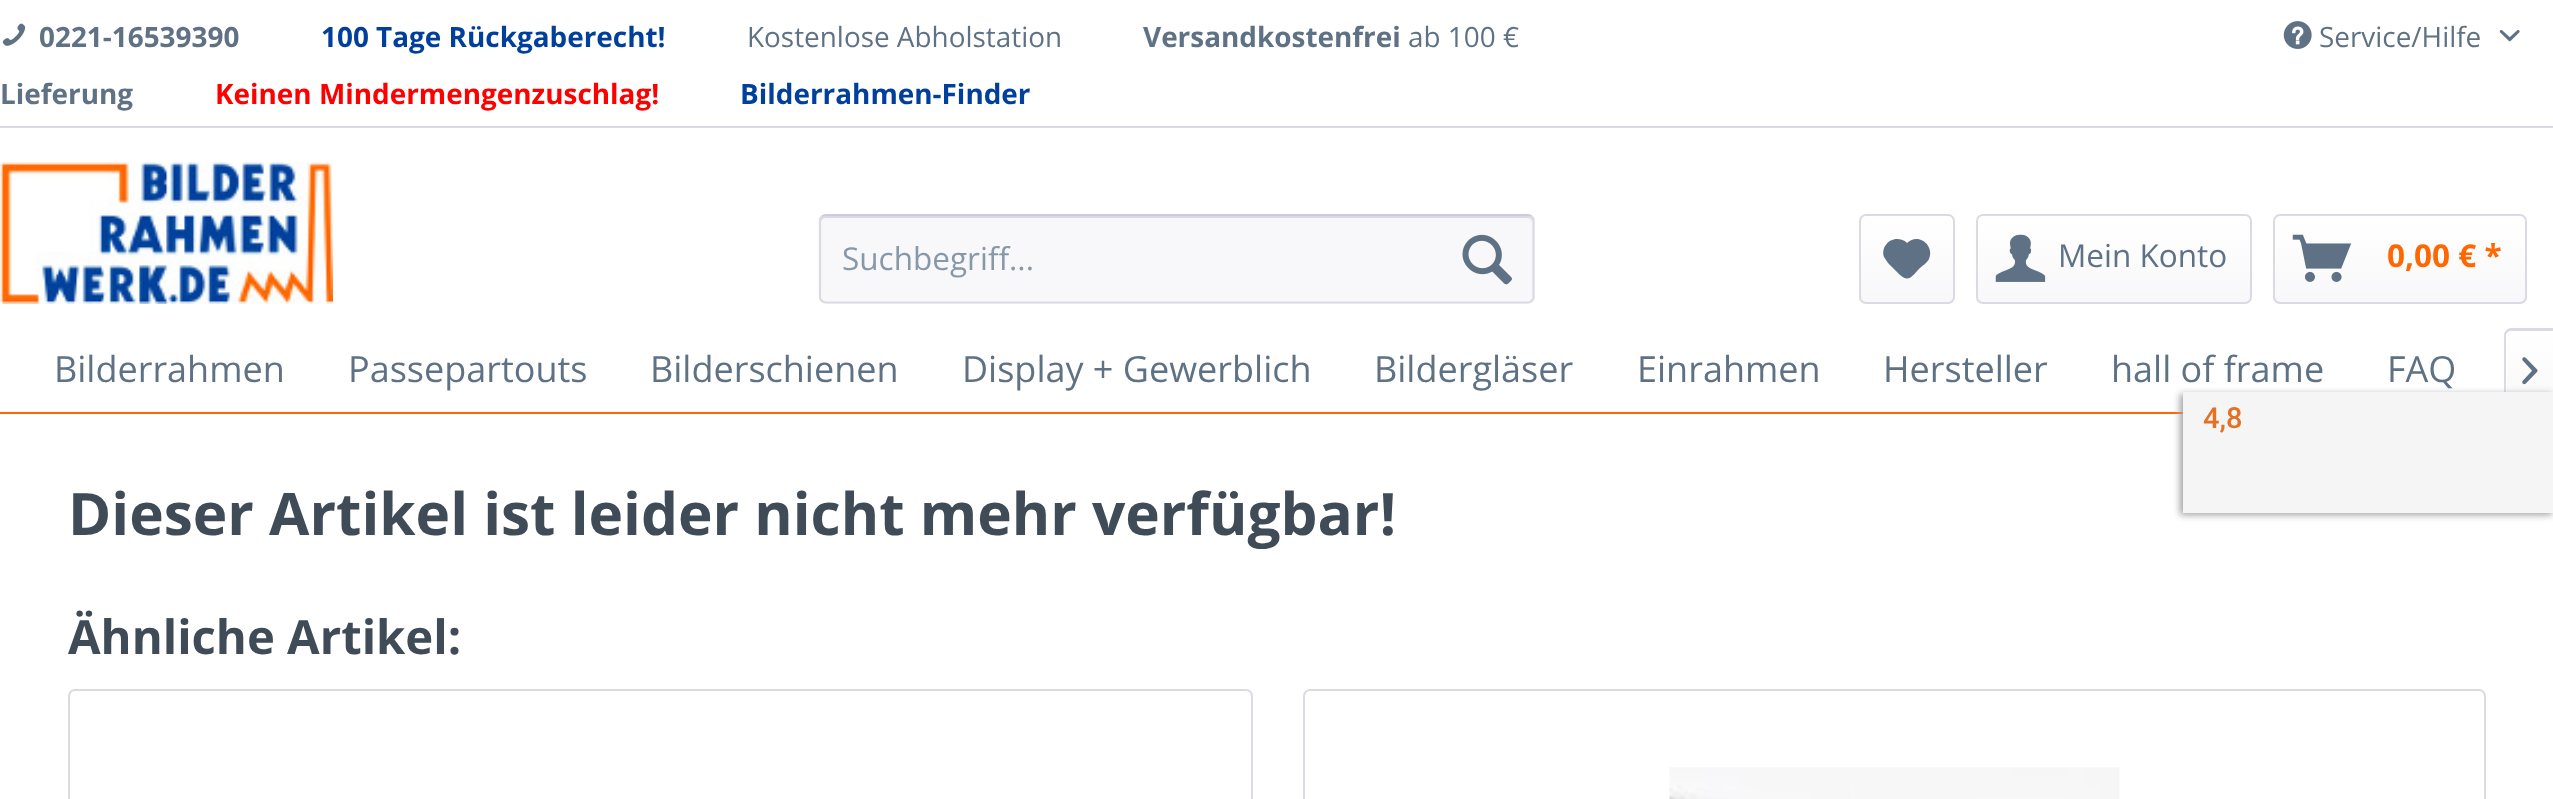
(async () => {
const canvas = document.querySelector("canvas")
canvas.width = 2553
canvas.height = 799
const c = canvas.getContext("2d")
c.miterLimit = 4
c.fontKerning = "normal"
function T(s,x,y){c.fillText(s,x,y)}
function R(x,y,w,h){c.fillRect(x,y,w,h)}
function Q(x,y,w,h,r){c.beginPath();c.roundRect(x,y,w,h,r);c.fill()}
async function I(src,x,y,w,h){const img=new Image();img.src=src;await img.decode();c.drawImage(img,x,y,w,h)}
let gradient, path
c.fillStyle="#fff"
R(0,0,2553,799)
c.fillStyle="#dadae5"
R(0,126,2553,2)
await I("1.png",2,23,24,23)
c.font="bold 27.9px Open Sans"
c.fillStyle="#5f7285"
T("0221-16539390",39,47)
c.fillStyle="#00409c"
T("100 Tage Rückgaberecht!",321,47)
c.font="27.9px Open Sans"
c.fillStyle="#5f7285"
T("Kostenlose Abholstation",747,47)
c.font="bold 27.9px Open Sans"
T("Versandkostenfrei",1143,47)
c.font="27.9px Open Sans"
T("ab 100 €",1408,47)
c.font="bold 27.9px Open Sans"
T("Lieferung",0,104)
c.fillStyle="#f00"
T("Keinen Mindermengenzuschlag!",215,104)
c.fillStyle="#00409c"
T("Bilderrahmen-Finder",740,104)
await I("2.png",2283,21,29,28)
c.font="27.9px Open Sans"
c.fillStyle="#5f7285"
T("Service/Hilfe",2319,47)
await I("3.png",2499,30,21,12)
await I("4.png",0,162,333,142)
c.fillStyle="#f8f8fa"
Q(819,214,716,90,7)
c.fillStyle="#dadae5"
path = new Path2D("M826 218h702c2 0 4 2 4 5v-2c0-3-2-5-5-5h-701c-3 0-5 2-5 5v2c0-3 2-5 5-5z")
c.fill(path)
path = new Path2D("M822 216.5c1-1 2.5-1.5 4-1.5h702c1 0 2.5 .5 3.5 1.5")
c.strokeStyle="#cbcbdb"
c.lineWidth=2.2
c.stroke(path)
path = new Path2D("M1531.5 216.5c1.5 1 2 2.5 2 4v76.5c0 1.5-.5 3-2 4c-1 1-2.5 1.5-3.5 1.5h-702c-1.5 0-3-.5-4-1.5c-1.5-1-2-2.5-2-4v-76.5c0-1.5 .5-3 2-4")
c.strokeStyle="#dadae5"
c.stroke(path)
c.font="31.5px Open Sans"
c.fillStyle="#8798a9"
T("Suchbegriff...",842,270)
await I("5.png",1462,234,50,51)
gradient = c.createLinearGradient(1907,216,1907,302)
gradient.addColorStop(0,"#fff")
gradient.addColorStop(1,"#f8f8fa")
c.fillStyle = gradient
Q(1861,216,92,86,5)
c.beginPath()
c.roundRect(1860,215,94,88,6)
c.lineWidth=2
c.stroke()
c.fillStyle="#5f7285"
path = new Path2D("M1897 239c-9 0-16 9-13 18l4 6l12 12c9 8 12 1 19-6c3-3 8-6 10-10c6-14-11-27-22-16c-3-3-6-4-10-4z")
c.fill(path)
gradient = c.createLinearGradient(2114,216,2114,302)
gradient.addColorStop(0,"#fff")
gradient.addColorStop(1,"#f8f8fa")
c.fillStyle = gradient
Q(1978,216,272,86,5)
c.beginPath()
c.roundRect(1977,215,274,88,6)
c.stroke()
await I("6.png",1995,234,51,48)
c.fillStyle="#5f7285"
T("Mein Konto",2058,267)
gradient = c.createLinearGradient(2400,216,2400,302)
gradient.addColorStop(0,"#fff")
gradient.addColorStop(1,"#f8f8fa")
c.fillStyle = gradient
Q(2275,216,250,86,5)
c.beginPath()
c.roundRect(2274,215,252,88,6)
c.stroke()
await I("7.png",2292,234,60,48)
c.font="bold 31.5px Open Sans"
c.fillStyle="#ff6700"
T("0,00 € *",2387,267)
R(0,412,2183,2)
c.font="36px Open Sans"
c.fillStyle="#5f7285"
T("Bilderrahmen",54,382)
T("Passepartouts",348,382)
T("Bilderschienen",650,382)
T("Display + Gewerblich",962,382)
T("Bildergläser",1374,382)
T("Einrahmen",1637,382)
T("Hersteller",1883,382)
T("hall of frame",2111,382)
T("FAQ",2387,382)
gradient = c.createLinearGradient(2530,331,2530,410)
gradient.addColorStop(0,"#fff")
gradient.addColorStop(1,"#f8f8fa")
c.fillStyle = gradient
path = new Path2D("M2512 331h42v79h-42c-3 0-5-2-5-5v-69c0-3 2-5 5-5z")
c.fill(path)
c.fillStyle="#dadae5"
path = new Path2D("M2511 328h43v84h-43c-4 0-7-3-7-7v-70c0-3 3-7 7-7zm0 3h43v79h-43c-2 0-5-3-5-5v-70c0-2 3-4 5-4z")
c.fill(path,"evenodd")
await I("8.png",2522,357,16,28)
c.fillStyle="#a2a2a2"
c.filter="blur(3.5px)"
c.beginPath()
c.rect(2180,394,372,121)
c.fill()
c.filter="none"
c.fillStyle="#f5f5f5"
R(2183,392,370,121)
c.font="500 29px Roboto"
c.fillStyle="#e57125"
T("4,8",2203,428)
c.font="bold 58.5px Open Sans"
c.fillStyle="#3f4c58"
T("Dieser Artikel ist leider nicht mehr verfügbar!",68,535)
c.font="bold 47.25px Open Sans"
T("Ähnliche Artikel:",68,654)
c.beginPath()
c.roundRect(69,690,1183,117,6)
c.stroke()
c.beginPath()
c.roundRect(1304,690,1181,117,6)
c.stroke()
await I("9.png",1669,767,451,32)
})()
